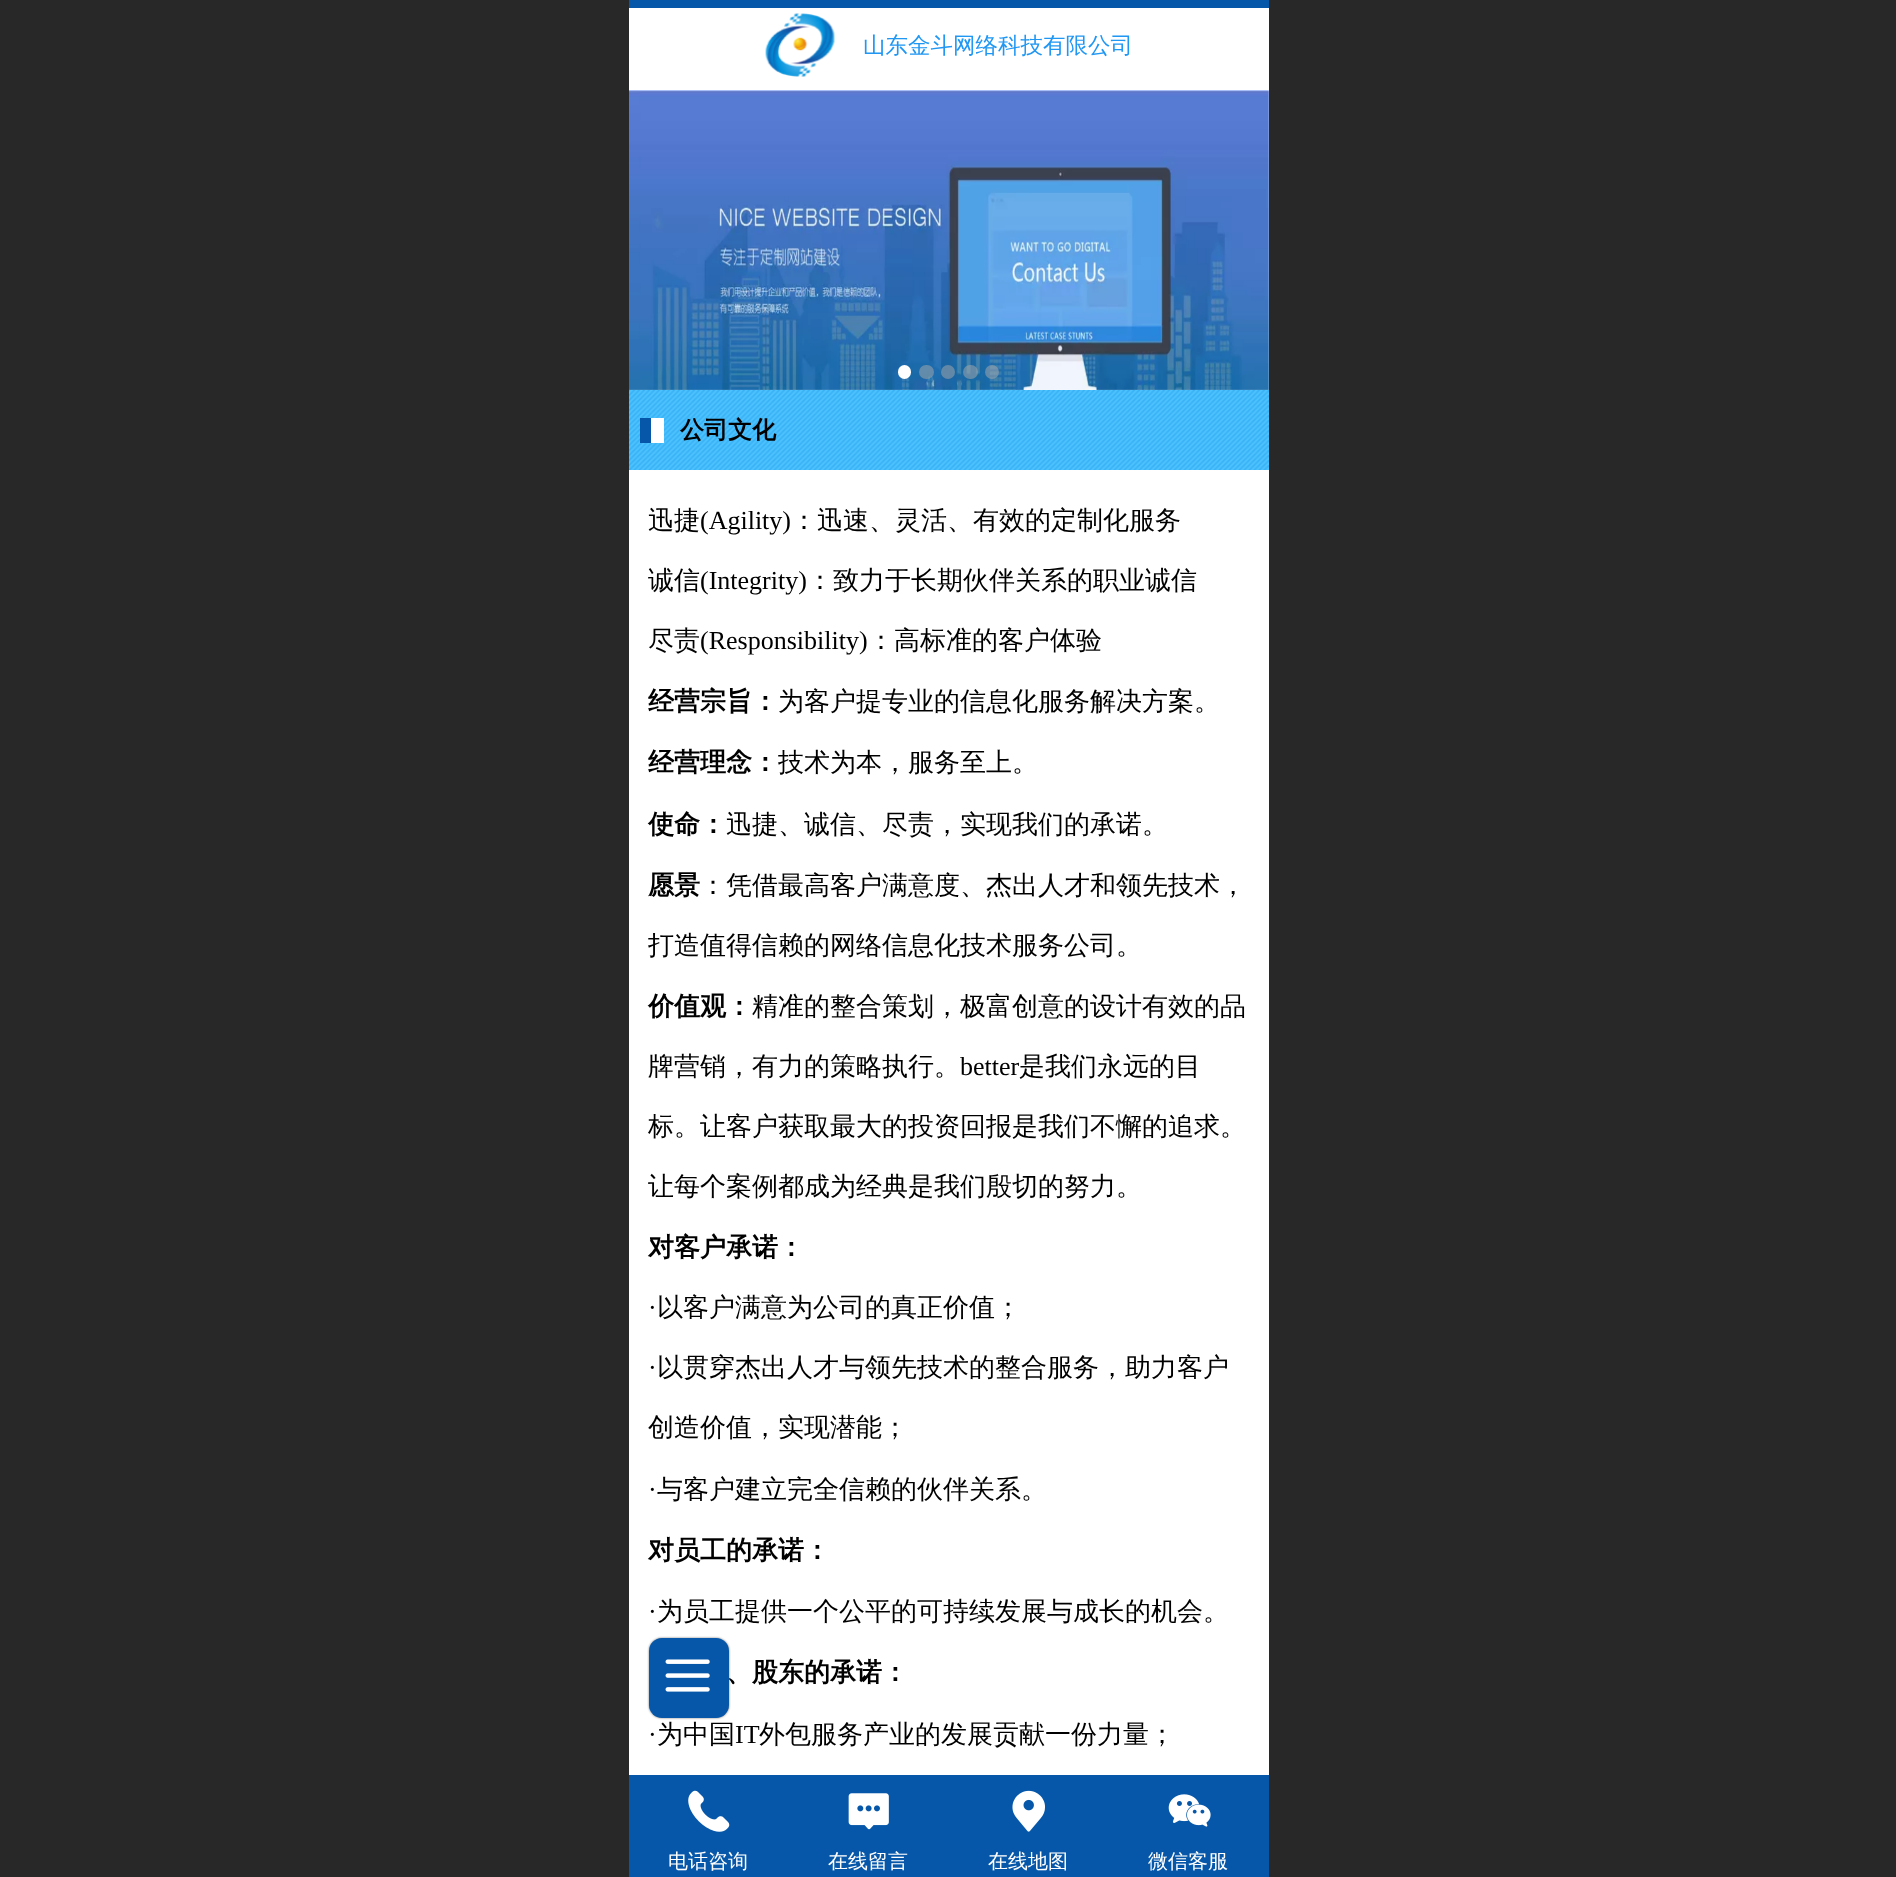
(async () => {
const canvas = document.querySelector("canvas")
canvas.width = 1896
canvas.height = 1877
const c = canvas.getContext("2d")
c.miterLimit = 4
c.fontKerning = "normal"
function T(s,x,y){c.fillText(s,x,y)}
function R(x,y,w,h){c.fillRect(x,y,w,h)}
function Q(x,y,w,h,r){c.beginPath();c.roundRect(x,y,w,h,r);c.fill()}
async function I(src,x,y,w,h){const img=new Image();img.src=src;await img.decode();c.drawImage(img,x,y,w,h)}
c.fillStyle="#fff"
R(0,0,1896,1877)
c.fillStyle="#282828"
R(0,0,629,1877)
c.fillStyle="#0657a9"
R(629,0,640,8)
await I("1.png",765,13,70,64)
c.font="500 22.5px WenQuanYi Zen Hei"
c.fillStyle="#2097f3"
T("山东金斗网络科技有限公司",863,53)
c.fillStyle="#00000080"
c.filter="blur(1px)"
c.beginPath()
c.roundRect(649,1638,80,80,13)
c.fill()
c.filter="none"
c.font="bold 26px WenQuanYi Zen Hei"
c.fillStyle="#000"
T("、股东的承诺：",726,1681)
c.fillStyle="#0657a9"
Q(649,1638,80,80,13)
await I("2.png",665,1659,45,33)
await I("3.png",629,90,640,300)
c.fillStyle="#fff"
Q(898,365,13,14,6.5)
c.fillStyle="#ababab80"
Q(919,365,15,14,7)
c.beginPath()
c.arc(948,372,7,0,7)
c.fill()
Q(963,365,15,14,7)
c.beginPath()
c.arc(992,372,7,0,7)
c.fill()
await I("4.png",629,390,640,80)
c.fillStyle="#0657a9"
R(640,418,11,25)
c.fillStyle="#fff"
R(651,418,13,25)
c.font="bold 24px WenQuanYi Zen Hei"
c.fillStyle="#000"
T("公司文化",680,438)
c.font="500 26px WenQuanYi Zen Hei"
T("迅捷",648,529)
c.font="26px Liberation Serif"
T("(Agility)",700,529)
c.font="500 26px WenQuanYi Zen Hei"
T("：迅速、灵活、有效的定制化服务",791,529)
T("诚信",648,589)
c.font="26px Liberation Serif"
T("(Integrity)",700,589)
c.font="500 26px WenQuanYi Zen Hei"
T("：致力于长期伙伴关系的职业诚信",807,589)
T("尽责",648,649)
c.font="26px Liberation Serif"
T("(Responsibility)",700,649)
c.font="500 26px WenQuanYi Zen Hei"
T("：高标准的客户体验",868,649)
c.font="bold 26px WenQuanYi Zen Hei"
T("经营宗旨：",648,710)
c.font="500 26px WenQuanYi Zen Hei"
T("为客户提专业的信息化服务解决方案。",778,710)
c.font="bold 26px WenQuanYi Zen Hei"
T("经营理念：",648,771)
c.font="500 26px WenQuanYi Zen Hei"
T("技术为本，服务至上。",778,771)
c.font="bold 26px WenQuanYi Zen Hei"
T("使命：",648,833)
c.font="500 26px WenQuanYi Zen Hei"
T("迅捷、诚信、尽责，实现我们的承诺。",726,833)
c.font="bold 26px WenQuanYi Zen Hei"
T("愿景",648,894)
c.font="500 26px WenQuanYi Zen Hei"
T("：凭借最高客户满意度、杰出人才和领先技术，",700,894)
T("打造值得信赖的网络信息化技术服务公司。",648,954)
c.font="bold 26px WenQuanYi Zen Hei"
T("价值观：",648,1015)
c.font="500 26px WenQuanYi Zen Hei"
T("精准的整合策划，极富创意的设计有效的品",752,1015)
T("牌营销，有力的策略执行。",648,1075)
c.font="26px Liberation Serif"
T("better",960,1075)
c.font="500 26px WenQuanYi Zen Hei"
T("是我们永远的目",1019,1075)
T("标。让客户获取最大的投资回报是我们不懈的追求。",648,1135)
T("让每个案例都成为经典是我们殷切的努力。",648,1195)
c.font="bold 26px WenQuanYi Zen Hei"
T("对客户承诺：",648,1256)
c.font="26px Liberation Serif"
T("·",648,1316)
c.font="500 26px WenQuanYi Zen Hei"
T("以客户满意为公司的真正价值；",657,1316)
c.font="26px Liberation Serif"
T("·",648,1376)
c.font="500 26px WenQuanYi Zen Hei"
T("以贯穿杰出人才与领先技术的整合服务，助力客户",657,1376)
T("创造价值，实现潜能；",648,1436)
c.font="26px Liberation Serif"
T("·",648,1498)
c.font="500 26px WenQuanYi Zen Hei"
T("与客户建立完全信赖的伙伴关系。",657,1498)
c.font="bold 26px WenQuanYi Zen Hei"
T("对员工的承诺：",648,1559)
c.font="26px Liberation Serif"
T("·",648,1620)
c.font="500 26px WenQuanYi Zen Hei"
T("为员工提供一个公平的可持续发展与成长的机会。",657,1620)
c.font="26px Liberation Serif"
T("·",648,1743)
c.font="500 26px WenQuanYi Zen Hei"
T("为中国",657,1743)
c.font="26px Liberation Serif"
T("IT",735,1743)
c.font="500 26px WenQuanYi Zen Hei"
T("外包服务产业的发展贡献一份力量；",759,1743)
c.fillStyle="#0657a9"
R(629,1775,640,102)
await I("5.png",688,1790,42,42)
c.font="500 20px WenQuanYi Zen Hei"
c.fillStyle="#fff"
T("电话咨询",668,1868)
await I("6.png",848,1793,41,37)
T("在线留言",828,1868)
await I("7.png",1012,1790,33,42)
T("在线地图",988,1868)
await I("8.png",1168,1794,43,33)
T("微信客服",1148,1868)
c.fillStyle="#282828"
R(1269,0,627,1877)
})()
